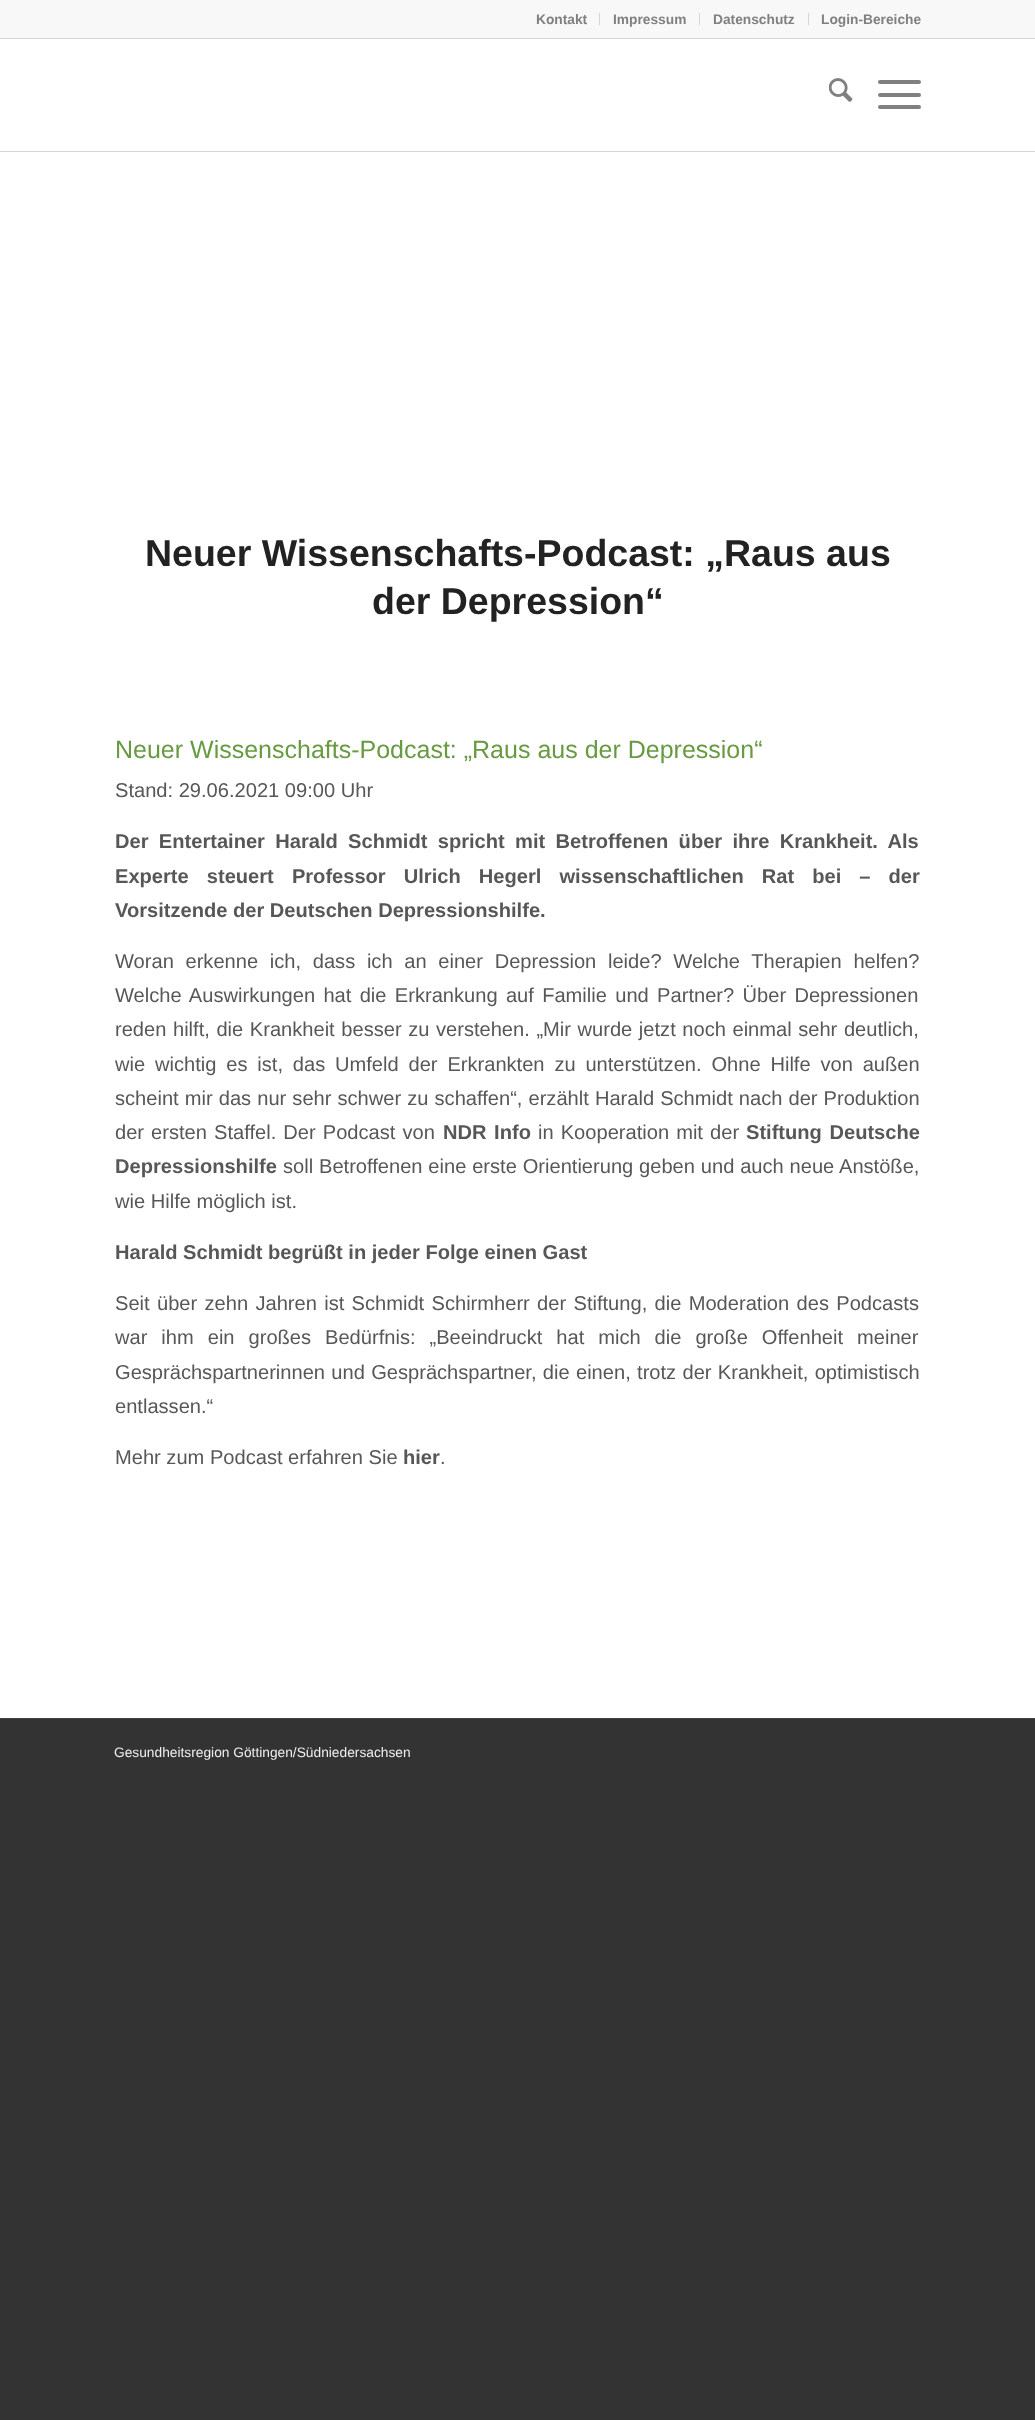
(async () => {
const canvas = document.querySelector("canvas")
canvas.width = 1035
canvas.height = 2420
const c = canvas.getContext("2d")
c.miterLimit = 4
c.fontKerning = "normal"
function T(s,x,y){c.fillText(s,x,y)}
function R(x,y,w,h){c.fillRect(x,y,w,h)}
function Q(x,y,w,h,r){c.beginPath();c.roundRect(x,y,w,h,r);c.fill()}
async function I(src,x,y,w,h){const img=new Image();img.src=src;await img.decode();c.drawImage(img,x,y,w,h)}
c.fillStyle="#333"
R(0,0,1035,2420)
c.fillStyle="#fff"
R(0,39,1035,1679)
c.fillStyle="#f8f8f8"
R(0,0,1035,38)
c.fillStyle="#d6d6d6"
R(0,38,1035,1)
R(599,13,1,12)
c.font="bold 13.75px Liberation Sans"
c.fillStyle="#808080"
T("Kontakt",536,24)
c.fillStyle="#d6d6d6"
R(699,13,1,12)
c.fillStyle="#808080"
T("Impressum",613,24)
c.fillStyle="#d6d6d6"
R(808,13,1,12)
c.fillStyle="#808080"
T("Datenschutz",713,24)
T("Login-Bereiche",821,24)
c.fillStyle="#d6d6d6"
R(0,151,1035,1)
await I("1.png",829,78,24,24)
c.fillStyle="#808080"
Q(878,93,43,4,2)
Q(878,80,43,4,2)
Q(878,105,43,4,2)
c.font="bold 37.5px Liberation Sans"
c.fillStyle="#222"
T("Neuer Wissenschafts-Podcast: „Raus aus",145,566)
T("der Depression“",372,614)
c.font="25px Liberation Sans"
c.fillStyle="#689a41"
T("Neuer Wissenschafts-Podcast: „Raus aus der Depression“",115,758)
c.font="20.1px Liberation Sans"
c.fillStyle="#575757"
T("Stand: 29.06.2021 09:00 Uhr",115,797)
c.wordSpacing="4.75px"
c.font="bold 20.1px Liberation Sans"
T("Der Entertainer Harald Schmidt spricht mit Betroffenen über ihre Krankheit. Als",115,848)
c.wordSpacing="12.5px"
T("Experte steuert Professor Ulrich Hegerl wissenschaftlichen Rat bei – der",115,883)
c.wordSpacing="0px"
T("Vorsitzende der Deutschen Depressionshilfe.",115,917)
c.wordSpacing="6.1px"
c.font="20.1px Liberation Sans"
T("Woran erkenne ich, dass ich an einer Depression leide? Welche Therapien helfen?",115,968)
c.wordSpacing="2.75px"
T("Welche Auswirkungen hat die Erkrankung auf Familie und Partner? Über Depressionen",115,1002)
c.wordSpacing="1px"
T("reden hilft, die Krankheit besser zu verstehen. „Mir wurde jetzt noch einmal sehr deutlich,",115,1036)
c.wordSpacing="4.25px"
T("wie wichtig es ist, das Umfeld der Erkrankten zu unterstützen. Ohne Hilfe von außen",115,1071)
c.wordSpacing="0.5px"
T("scheint mir das nur sehr schwer zu schaffen“, erzählt Harald Schmidt nach der Produktion",115,1105)
c.wordSpacing="1.5px"
T("der ersten Staffel. Der Podcast von",115,1139)
c.wordSpacing="2px"
c.font="bold 20.1px Liberation Sans"
T("NDR Info",443,1139)
c.wordSpacing="1.5px"
c.font="20.1px Liberation Sans"
T("in Kooperation mit der",538,1139)
c.wordSpacing="2px"
c.font="bold 20.1px Liberation Sans"
T("Stiftung Deutsche",746,1139)
c.wordSpacing="0px"
T("Depressionshilfe",115,1173)
c.wordSpacing="0.25px"
c.font="20.1px Liberation Sans"
T("soll Betroffenen eine erste Orientierung geben und auch neue Anstöße,",283,1173)
c.wordSpacing="0px"
T("wie Hilfe möglich ist.",115,1208)
c.font="bold 20.1px Liberation Sans"
T("Harald Schmidt begrüßt in jeder Folge einen Gast",115,1259)
c.wordSpacing="1.75px"
c.font="20.1px Liberation Sans"
T("Seit über zehn Jahren ist Schmidt Schirmherr der Stiftung, die Moderation des Podcasts",115,1310)
c.wordSpacing="8.4px"
T("war ihm ein großes Bedürfnis: „Beeindruckt hat mich die große Offenheit meiner",115,1344)
c.wordSpacing="0.75px"
T("Gesprächspartnerinnen und Gesprächspartner, die einen, trotz der Krankheit, optimistisch",115,1379)
c.wordSpacing="0px"
T("entlassen.“",115,1413)
T("Mehr zum Podcast erfahren Sie",115,1464)
c.font="bold 20.1px Liberation Sans"
T("hier",403,1464)
c.font="20.1px Liberation Sans"
T(".",440,1464)
c.fillStyle="#444"
R(0,1718,1035,1)
c.font="13.75px Liberation Sans"
c.fillStyle="#eee"
T("Gesundheitsregion Göttingen/Südniedersachsen",114,1757)
})()
